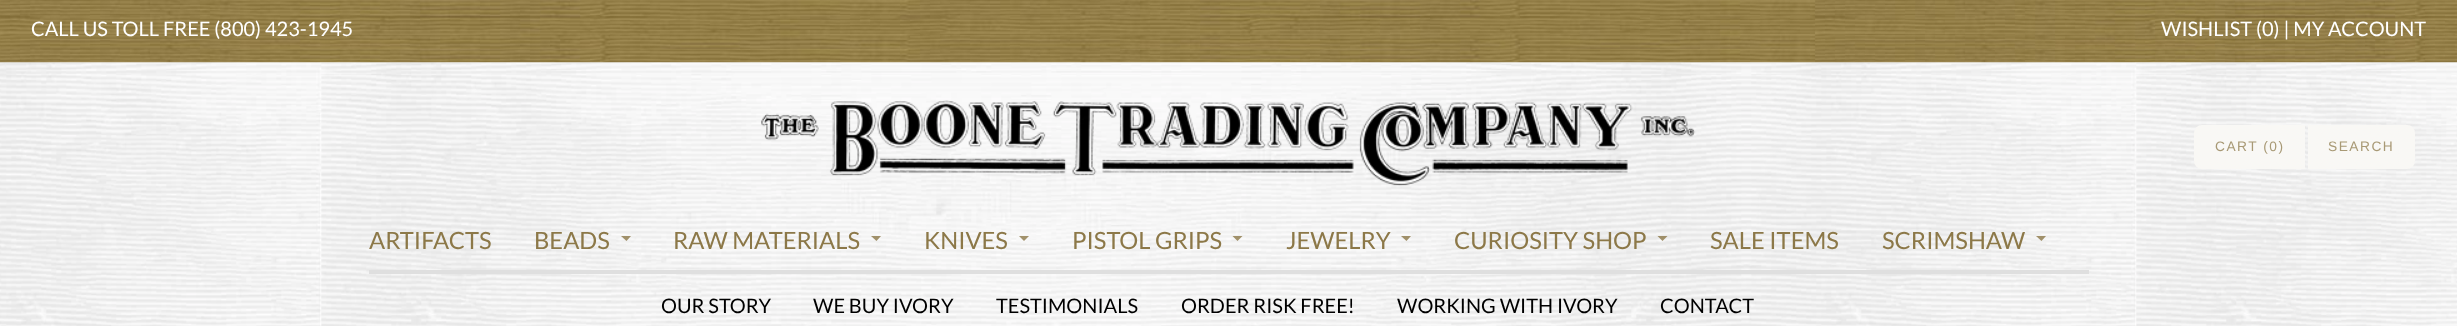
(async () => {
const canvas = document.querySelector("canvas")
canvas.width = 2457
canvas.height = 326
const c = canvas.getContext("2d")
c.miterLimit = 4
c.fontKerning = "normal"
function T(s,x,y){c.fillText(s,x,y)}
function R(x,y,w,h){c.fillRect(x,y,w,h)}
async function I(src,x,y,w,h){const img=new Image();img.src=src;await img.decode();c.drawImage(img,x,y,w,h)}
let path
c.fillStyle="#fff"
R(0,0,2457,326)
await I("1.png",0,62,2457,1)
await I("2.png",0,0,2457,63)
c.font="20px Lato"
T("CALL US TOLL FREE (800) 423-1945",31,36)
T("WISHLIST (0) | MY ACCOUNT",2161,36)
await I("3.png",0,62,2457,264)
await I("4.png",761,100,934,86)
c.fillStyle="#f9f8f5"
c.beginPath()
c.roundRect(2194,125,111,44,[8,0,0,8])
c.fill()
c.letterSpacing="1.5px"
c.font="13.75px Liberation Sans"
c.fillStyle="#a89975"
T("CART (0)",2215,151)
c.fillStyle="#f9f8f5"
c.beginPath()
c.roundRect(2308,125,107,44,[0,8,8,0])
c.fill()
c.fillStyle="#a89975"
T("SEARCH",2328,151)
c.fillStyle="#dfdfdf"
R(369,270,1720,4)
c.letterSpacing="0px"
c.font="23.75px Lato"
c.fillStyle="#8c7848"
T("ARTIFACTS",369,249)
T("BEADS",534,249)
c.fillStyle="#8c7848cc"
path = new Path2D("M626.5 241l-5.5-5h10z")
c.fill(path)
c.fillStyle="#8c7848"
T("RAW MATERIALS",673,249)
c.fillStyle="#8c7848cc"
path = new Path2D("M876.5 241l-5.5-5h10z")
c.fill(path)
c.fillStyle="#8c7848"
T("KNIVES",924,249)
c.fillStyle="#8c7848cc"
path = new Path2D("M1024 241l-5-5h10z")
c.fill(path)
c.fillStyle="#8c7848"
T("PISTOL GRIPS",1072,249)
c.fillStyle="#8c7848cc"
path = new Path2D("M1237.5 241l-5-5h10z")
c.fill(path)
c.fillStyle="#8c7848"
T("JEWELRY",1286,249)
c.fillStyle="#8c7848cc"
path = new Path2D("M1406.5 241l-5.5-5h10z")
c.fill(path)
c.fillStyle="#8c7848"
T("CURIOSITY SHOP",1454,249)
c.fillStyle="#8c7848cc"
path = new Path2D("M1662.5 241l-5-5h10z")
c.fill(path)
c.fillStyle="#8c7848"
T("SALE ITEMS",1710,249)
T("SCRIMSHAW",1882,249)
c.fillStyle="#8c7848cc"
path = new Path2D("M2041.5 241l-5.5-5h10z")
c.fill(path)
c.font="20px Lato"
c.fillStyle="#000"
T("OUR STORY",661,313)
T("WE BUY IVORY",813,313)
T("TESTIMONIALS",996,313)
T("ORDER RISK FREE!",1181,313)
T("WORKING WITH IVORY",1397,313)
T("CONTACT",1660,313)
})()
